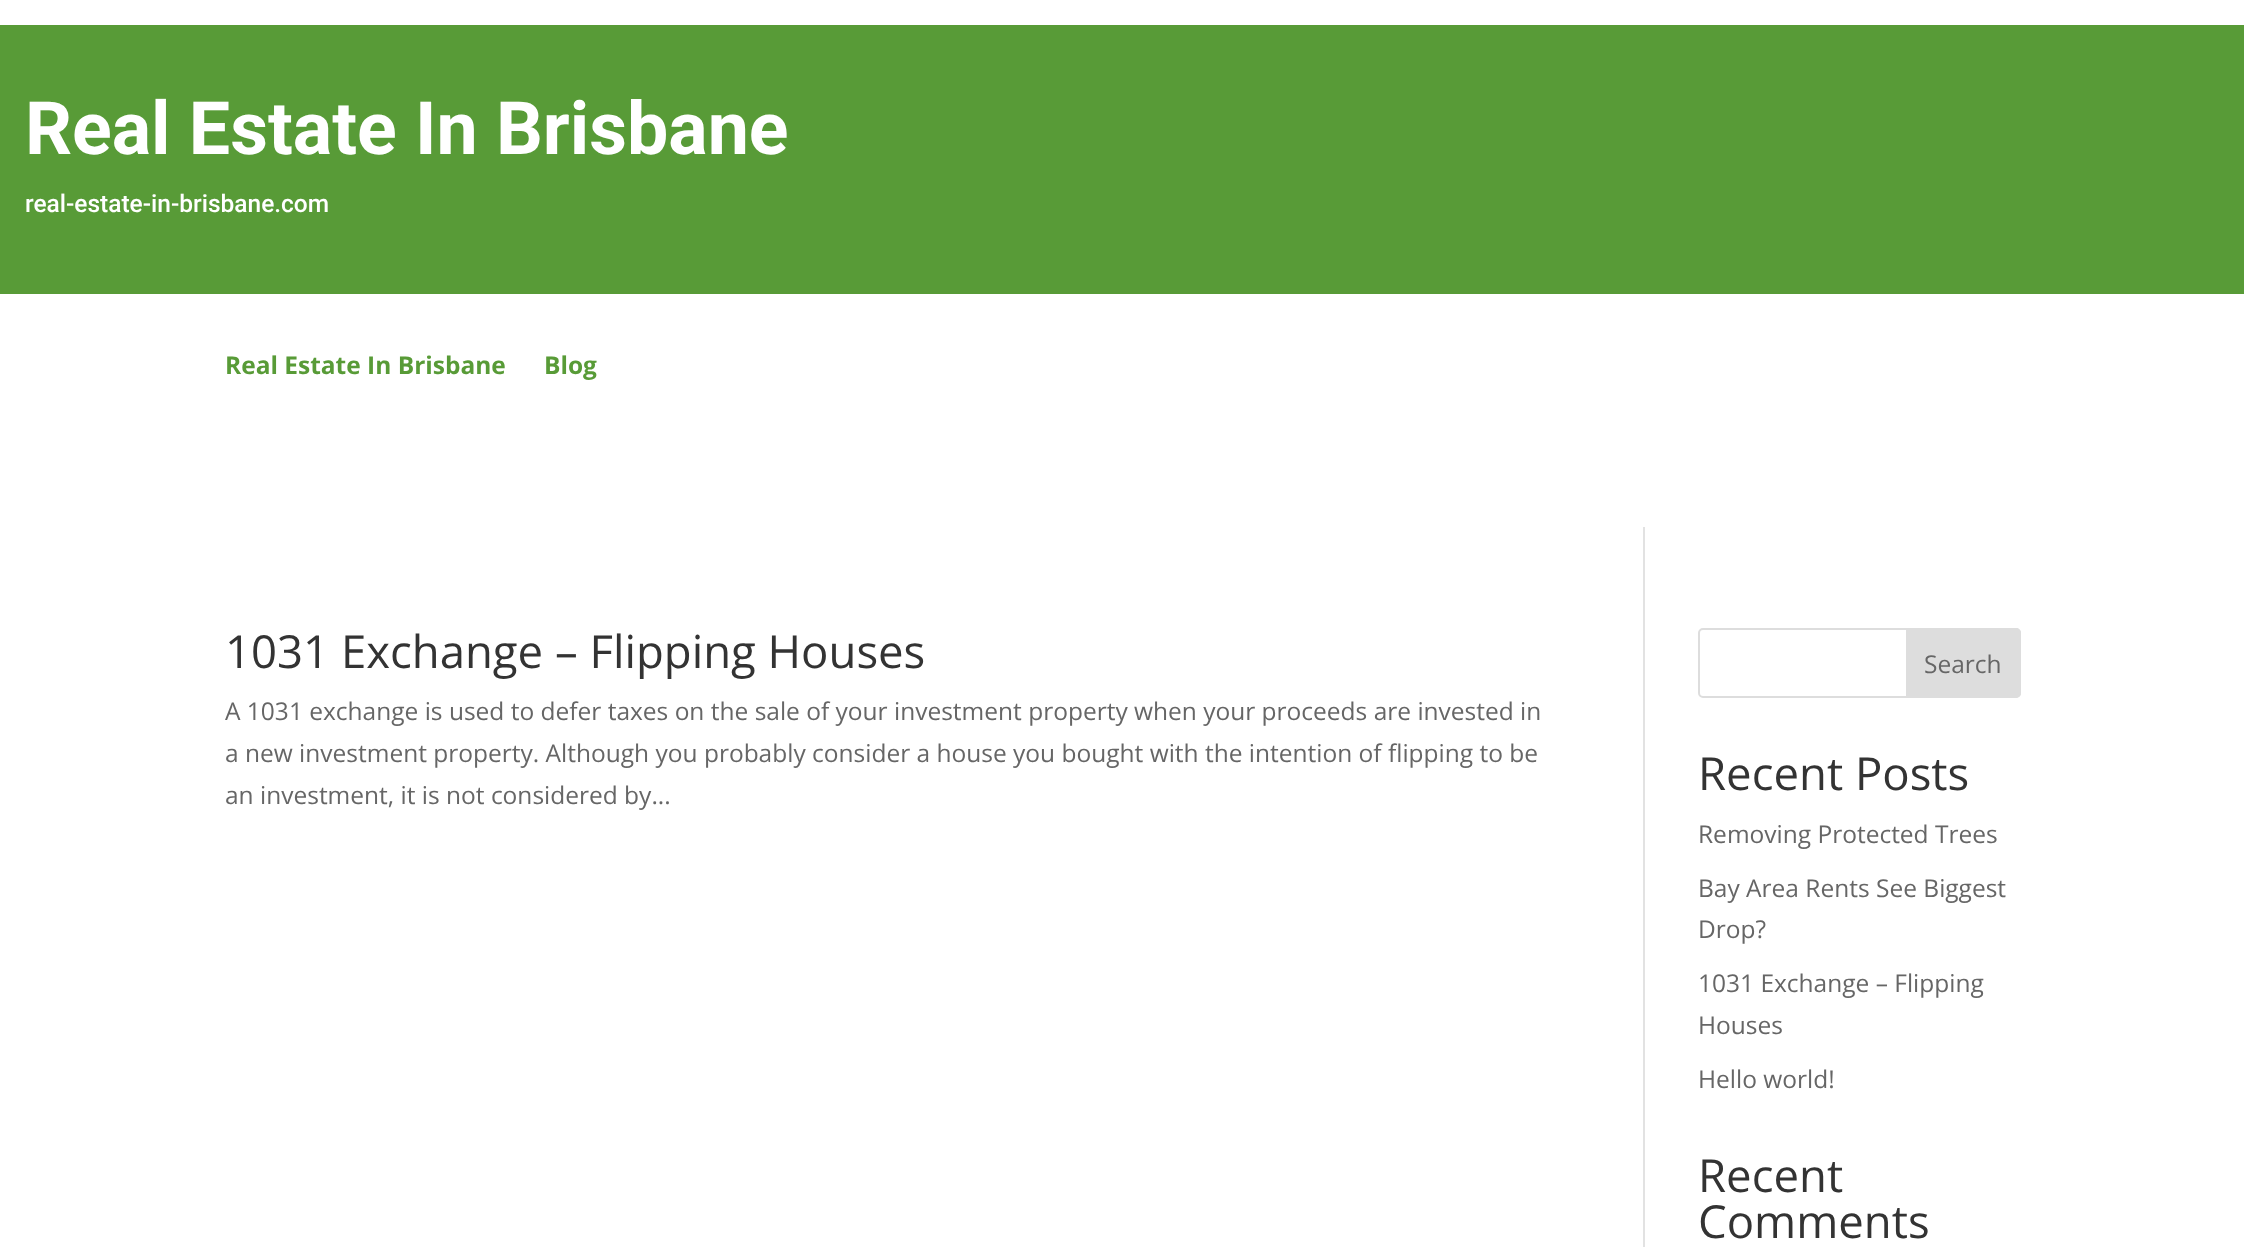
(async () => {
const canvas = document.querySelector("canvas")
canvas.width = 2244
canvas.height = 1247
const c = canvas.getContext("2d")
c.miterLimit = 4
c.fontKerning = "normal"
function T(s,x,y){c.fillText(s,x,y)}
function R(x,y,w,h){c.fillRect(x,y,w,h)}
c.fillStyle="#fff"
R(0,0,2244,1247)
c.fillStyle="#589b37"
R(0,25,2244,269)
c.font="bold 73.5px Roboto"
c.fillStyle="#fff"
T("Real Estate In Brisbane",25,154)
c.font="500 24.5px Roboto"
T("real-estate-in-brisbane.com",25,212)
c.font="bold 24.5px Open Sans"
c.fillStyle="#589b37"
T("Real Estate In Brisbane",225,374)
T("Blog",544,374)
c.fillStyle="#e2e2e2"
R(1643,527,2,720)
c.font="45.5px Open Sans"
c.fillStyle="#333"
T("1031 Exchange – Flipping Houses",225,668)
c.font="24.5px Open Sans"
c.fillStyle="#666"
T("A 1031 exchange is used to defer taxes on the sale of your investment property when your proceeds are invested in",225,720)
T("a new investment property. Although you probably consider a house you bought with the intention of flipping to be",225,762)
T("an investment, it is not considered by...",225,804)
c.beginPath()
c.roundRect(1699,629,321,68,4)
c.strokeStyle="#ddd"
c.lineWidth=2
c.stroke()
c.fillStyle="#ddd"
c.beginPath()
c.roundRect(1907,629,113,68,[0,4,4,0])
c.fill()
c.stroke()
c.fillStyle="#666"
T("Search",1924,673)
c.font="45.5px Open Sans"
c.fillStyle="#333"
T("Recent Posts",1698,790)
c.font="24.5px Open Sans"
c.fillStyle="#666"
T("Removing Protected Trees",1698,843)
T("Bay Area Rents See Biggest",1698,897)
T("Drop?",1698,938)
T("1031 Exchange – Flipping",1698,992)
T("Houses",1698,1034)
T("Hello world!",1698,1088)
c.font="45.5px Open Sans"
c.fillStyle="#333"
T("Recent",1698,1192)
T("Comments",1698,1238)
})()
